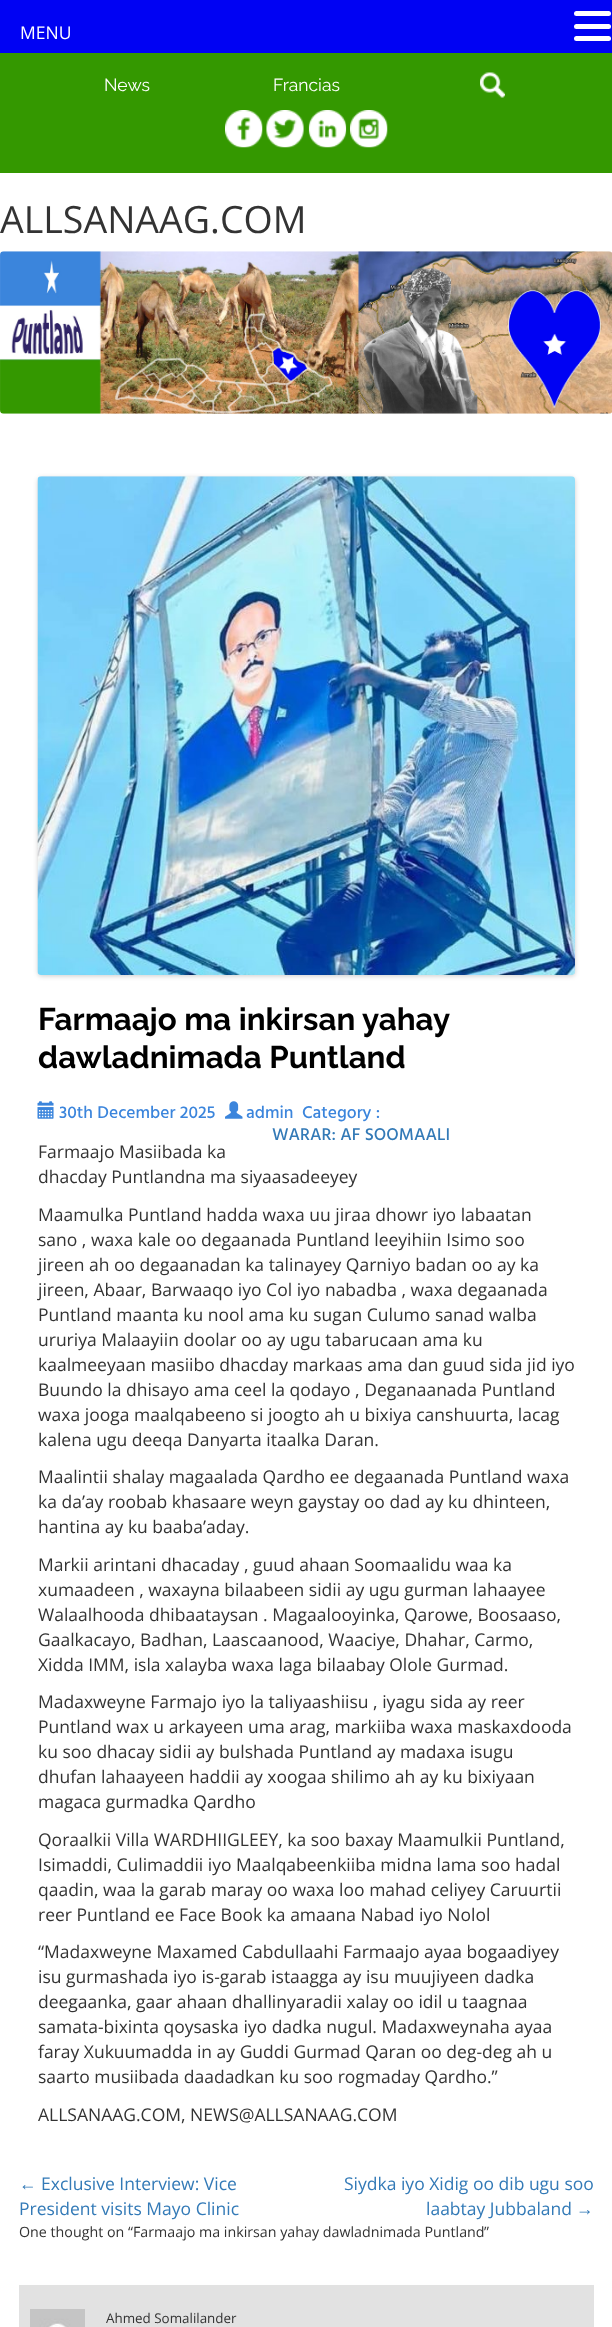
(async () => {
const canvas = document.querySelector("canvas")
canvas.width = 612
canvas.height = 2327
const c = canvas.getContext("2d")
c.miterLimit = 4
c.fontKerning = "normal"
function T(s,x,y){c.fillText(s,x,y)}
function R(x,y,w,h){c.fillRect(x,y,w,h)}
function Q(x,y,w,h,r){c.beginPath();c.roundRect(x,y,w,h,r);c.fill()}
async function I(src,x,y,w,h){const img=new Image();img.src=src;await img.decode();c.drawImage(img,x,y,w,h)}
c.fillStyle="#fff"
R(0,0,612,2327)
c.fillStyle="#0002f3"
R(0,0,612,53)
c.font="17.5px Open Sans"
c.fillStyle="#fff"
T("MENU",20,39)
Q(574,11,37,5,2.5)
Q(574,24,37,5,2.5)
Q(574,36,37,5,2.5)
c.fillStyle="#349800"
R(0,53,612,120)
c.font="17.5px Raleway"
c.fillStyle="#fff"
T("News",104,91)
T("Francias",273,91)
await I("1.png",480,72,25,26)
await I("2.png",225,110,38,38)
await I("3.png",266,110,38,38)
await I("4.png",308,110,39,38)
await I("5.png",350,110,38,38)
c.font="37.5px Open Sans"
c.fillStyle="#333"
T("ALLSANAAG.COM",0,233)
await I("6.png",0,251,612,163)
c.fillStyle="#00000033"
c.filter="blur(2.5px)"
c.beginPath()
c.roundRect(38,478,537,498,4)
c.fill()
c.filter="none"
await I("7.png",37,476,538,499)
c.font="bold 31.25px Raleway"
c.fillStyle="#000"
T("Farmaajo ma inkirsan yahay",38,1030)
T("dawladnimada Puntland",38,1068)
await I("8.png",37,1101,17,18)
c.font="500 17.5px Hind Vadodara"
c.fillStyle="#3b85dc"
T("30th December 2025",59,1118)
await I("9.png",225,1101,18,18)
T("admin  Category :",246,1118)
c.fillStyle="#337ab7"
T("WARAR: AF SOOMAALI",272,1140)
c.font="17.5px Open Sans"
c.fillStyle="#333"
T("Farmaajo Masiibada ka",38,1158)
T("dhacday Puntlandna ma siyaasadeeyey",38,1183)
T("Maamulka Puntland hadda waxa uu jiraa dhowr iyo labaatan",38,1221)
T("sano , waxa kale oo degaanada Puntland leeyihiin Isimo soo",38,1246)
T("jireen ah oo degaanadan ka talinayey Qarniyo badan oo ay ka",38,1271)
T("jireen, Abaar, Barwaaqo iyo Col iyo nabadba , waxa degaanada",38,1296)
T("Puntland maanta ku nool ama ku sugan Culumo sanad walba",38,1321)
T("ururiya Malaayiin doolar oo ay ugu tabarucaan ama ku",38,1346)
T("kaalmeeyaan masiibo dhacday markaas ama dan guud sida jid iyo",38,1371)
T("Buundo la dhisayo ama ceel la qodayo , Deganaanada Puntland",38,1396)
T("waxa jooga maalqabeeno si joogto ah u bixiya canshuurta, lacag",38,1421)
T("kalena ugu deeqa Danyarta itaalka Daran.",38,1446)
T("Maalintii shalay magaalada Qardho ee degaanada Puntland waxa",38,1483)
T("ka da’ay roobab khasaare weyn gaystay oo dad ay ku dhinteen,",38,1508)
T("hantina ay ku baaba’aday.",38,1533)
T("Markii arintani dhacaday , guud ahaan Soomaalidu waa ka",38,1571)
T("xumaadeen , waxayna bilaabeen sidii ay ugu gurman lahaayee",38,1596)
T("Walaalhooda dhibaataysan . Magaalooyinka, Qarowe, Boosaaso,",38,1621)
T("Gaalkacayo, Badhan, Laascaanood, Waaciye, Dhahar, Carmo,",38,1646)
T("Xidda IMM, isla xalayba waxa laga bilaabay Olole Gurmad.",38,1671)
T("Madaxweyne Farmajo iyo la taliyaashiisu , iyagu sida ay reer",38,1708)
T("Puntland wax u arkayeen uma arag, markiiba waxa maskaxdooda",38,1733)
T("ku soo dhacay sidii ay bulshada Puntland ay madaxa isugu",38,1758)
T("dhufan lahaayeen haddii ay xoogaa shilimo ah ay ku bixiyaan",38,1783)
T("magaca gurmadka Qardho",38,1808)
T("Qoraalkii Villa WARDHIIGLEEY, ka soo baxay Maamulkii Puntland,",38,1846)
T("Isimaddi, Culimaddii iyo Maalqabeenkiiba midna lama soo hadal",38,1871)
T("qaadin, waa la garab maray oo waxa loo mahad celiyey Caruurtii",38,1896)
T("reer Puntland ee Face Book ka amaana Nabad iyo Nolol",38,1921)
T("“Madaxweyne Maxamed Cabdullaahi Farmaajo ayaa bogaadiyey",38,1958)
T("isu gurmashada iyo is-garab istaagga ay isu muujiyeen dadka",38,1983)
T("deegaanka, gaar ahaan dhallinyaradii xalay oo idil u taagnaa",38,2008)
T("samata-bixinta qoysaska iyo dadka nugul. Madaxweynaha ayaa",38,2033)
T("faray Xukuumadda in ay Guddi Gurmad Qaran oo deg-deg ah u",38,2058)
T("saarto musiibada daadadkan ku soo rogmaday Qardho.”",38,2083)
T("ALLSANAAG.COM, NEWS@ALLSANAAG.COM",38,2121)
c.font="17.5px Liberation Sans"
c.fillStyle="#337ab7"
T("←",19,2190)
c.font="17.5px Open Sans"
T("Exclusive Interview: Vice",41,2190)
T("President visits Mayo Clinic",19,2215)
T("Siydka iyo Xidig oo dib ugu soo",344,2190)
T("laabtay Jubbaland",426,2215)
c.font="17.5px Liberation Sans"
T("→",576,2215)
c.font="14.25px Open Sans"
c.fillStyle="#333"
T("One thought on “",19,2237)
T("Farmaajo ma inkirsan yahay dawladnimada Puntland",133,2237)
T("”",484,2237)
c.fillStyle="#e2e2e2"
R(19,2285,575,42)
await I("10.png",30,2309,55,18)
c.font="13.4px Open Sans"
c.fillStyle="#333"
T("Ahmed Somalilander",106,2323)
})()
